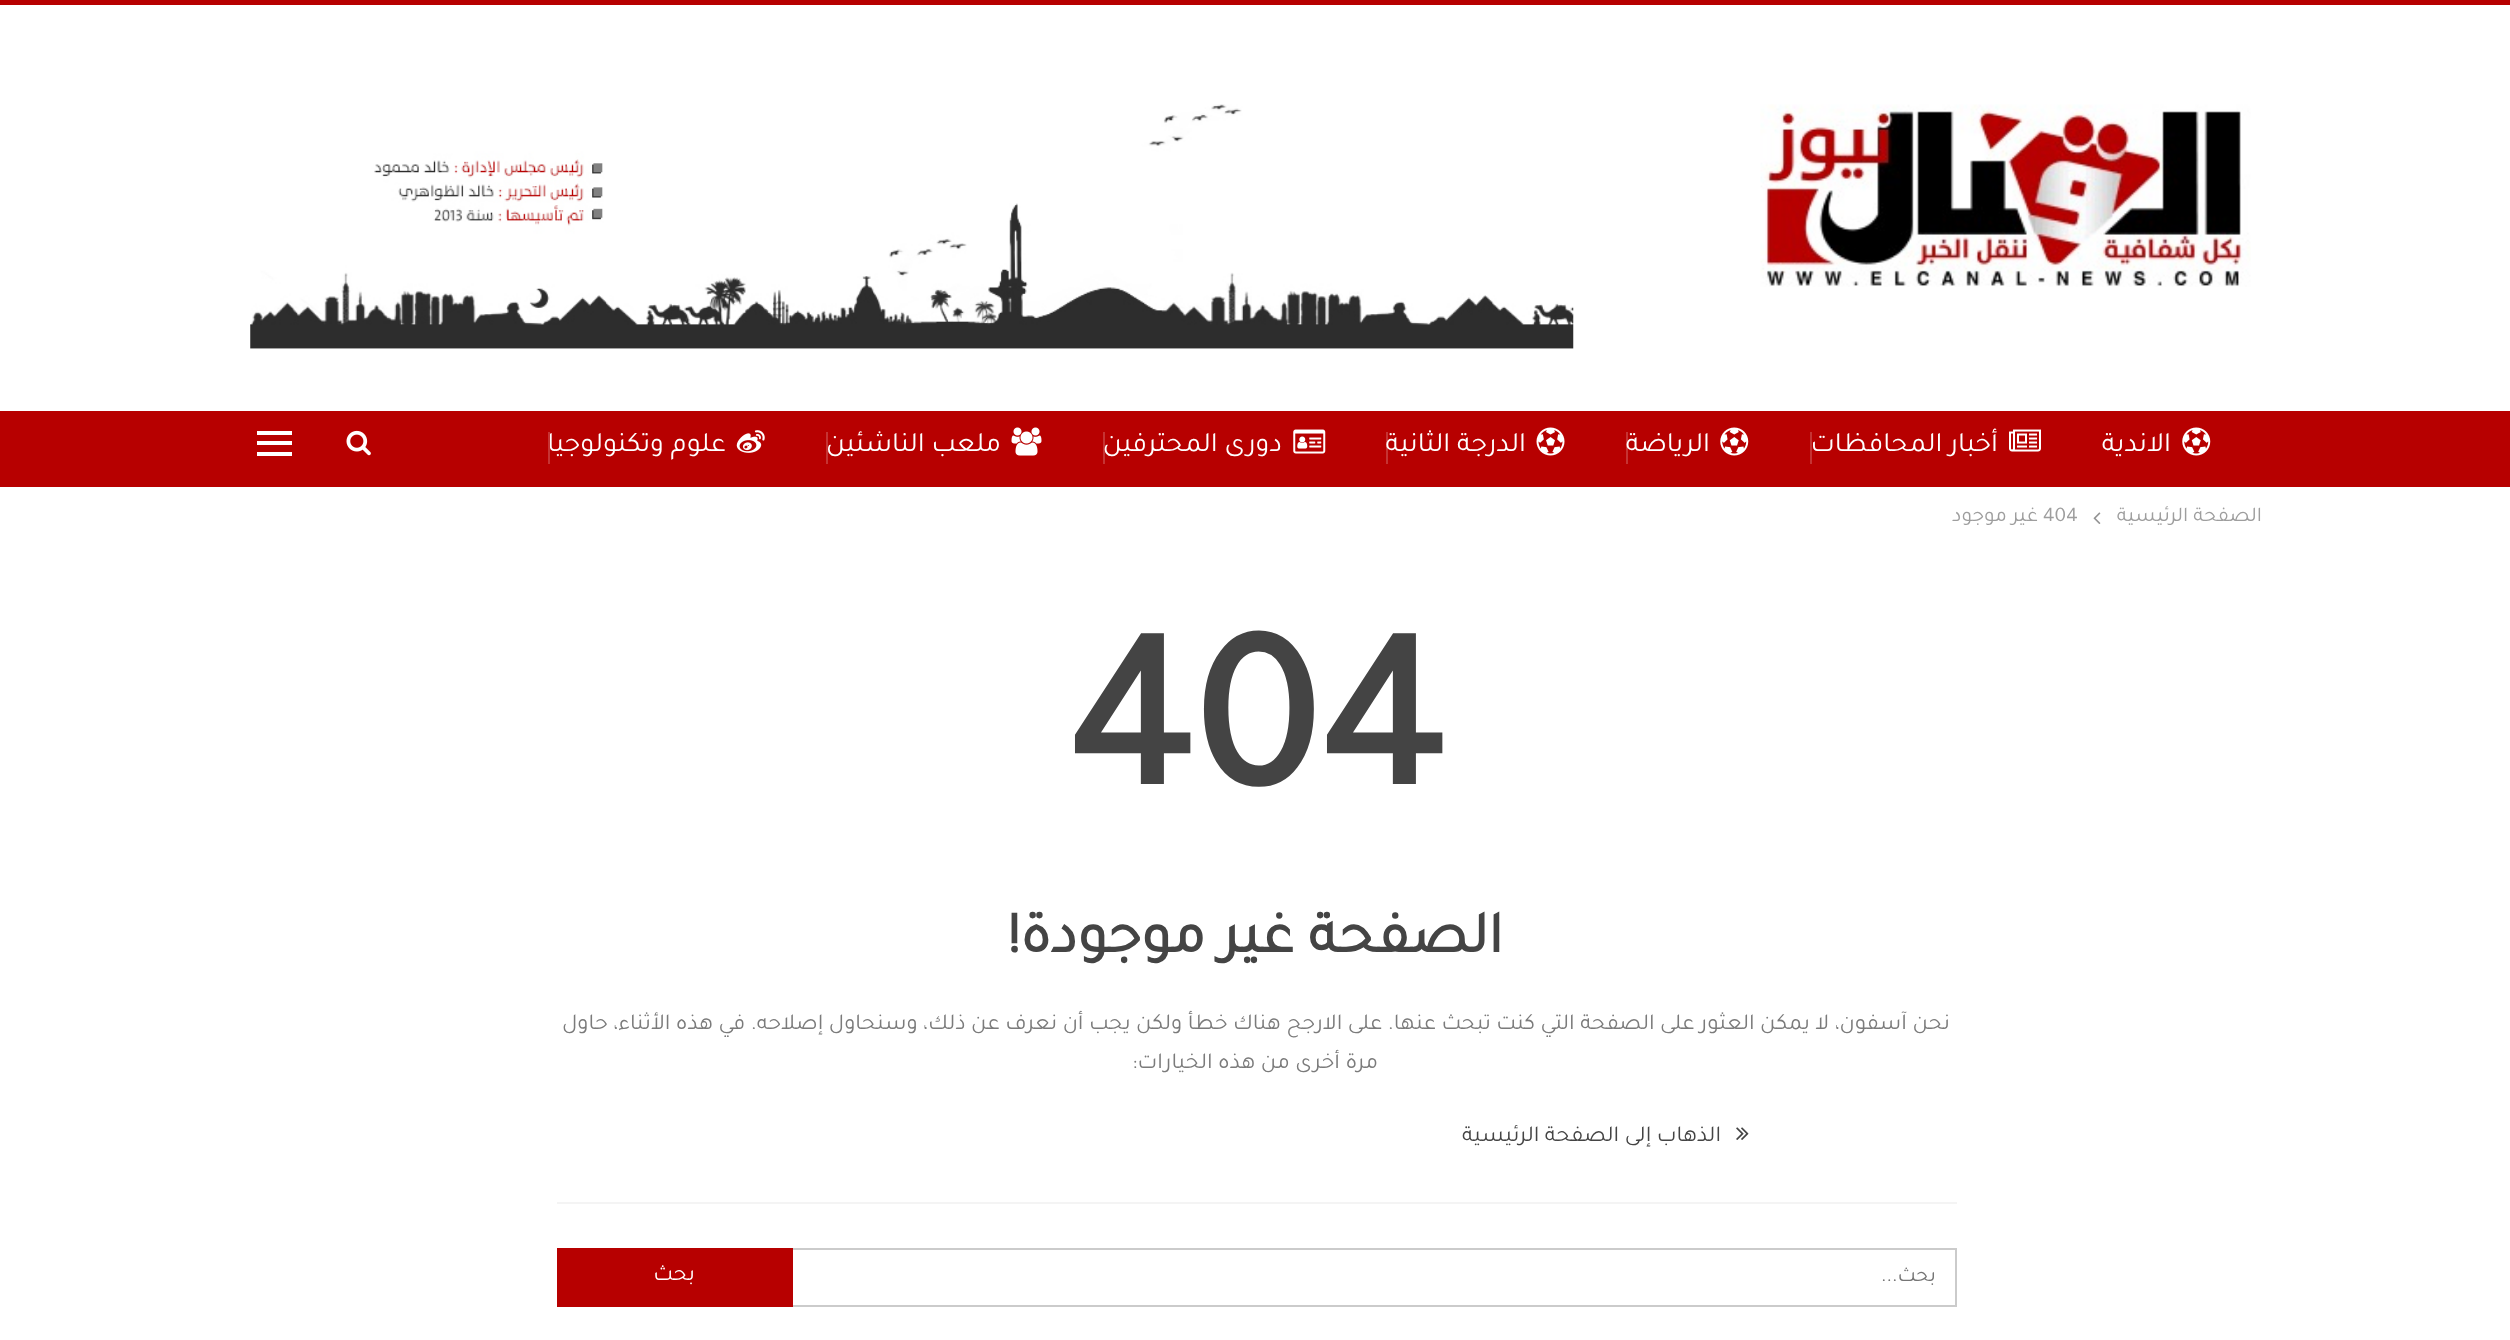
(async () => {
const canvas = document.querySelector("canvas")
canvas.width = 2510
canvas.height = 1340
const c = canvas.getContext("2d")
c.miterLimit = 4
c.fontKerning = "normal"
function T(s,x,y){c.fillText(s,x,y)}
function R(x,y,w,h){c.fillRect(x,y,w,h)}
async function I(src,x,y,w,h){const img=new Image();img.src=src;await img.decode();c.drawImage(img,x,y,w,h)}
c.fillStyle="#fff"
R(0,0,2510,1340)
c.fillStyle="#b70000"
R(0,0,2510,5)
await I("1.png",1760,104,491,183)
await I("2.png",250,104,1324,245)
R(0,411,2510,76)
await I("3.png",2182,427,29,29)
c.direction="rtl"
c.font="28px Tajawal"
c.fillStyle="#fff"
T("الاندية",2171,451)
await I("4.png",2009,429,32,23)
T("أخبار المحافظات",1998,451)
c.fillStyle="#c53333"
R(1810,432,2,32)
await I("3.png",1720,427,29,29)
c.fillStyle="#fff"
T("الرياضة",1710,451)
c.fillStyle="#ffffff33"
R(1626,432,2,32)
await I("5.png",1536,427,29,29)
c.fillStyle="#fff"
T("الدرجة الثانية",1526,451)
c.fillStyle="#ffffff33"
R(1386,432,2,32)
await I("6.png",1293,429,33,25)
c.fillStyle="#fff"
T("دورى المحترفين",1282,451)
c.fillStyle="#ffffff33"
R(1103,432,2,32)
await I("7.png",1011,427,31,29)
c.fillStyle="#fff"
T("ملعب الناشئين",1001,451)
c.fillStyle="#c53333"
R(826,432,2,32)
await I("8.png",736,430,29,23)
c.fillStyle="#fff"
T("علوم وتكنولوجيا",726,451)
c.fillStyle="#c53333"
R(548,432,2,32)
await I("9.png",346,430,25,26)
c.fillStyle="#fff"
R(257,441,35,4)
R(257,431,35,4)
R(257,452,35,4)
c.font="21px Tajawal"
c.fillStyle="#9e9e9e"
T("الصفحة الرئيسية",2262,521)
await I("10.png",2093,512,8,12)
c.direction="ltr"
T("404",2043,521)
c.direction="rtl"
T("غير موجود",2038,521)
c.direction="ltr"
c.font="bold 228px Tajawal"
c.fillStyle="#444"
T("404",1067,784)
c.direction="rtl"
c.font="bold 59.5px Tajawal"
T("الصفحة غير موجودة!",1503,952)
c.font="22.75px Tajawal"
c.fillStyle="#7b7b7b"
T("نحن آسفون، لا يمكن العثور على الصفحة التي كنت تبحث عنها. على الارجح هناك خطأ ولكن يجب أن نعرف عن ذلك، وسنحاول إصلاحه. في هذه الأثناء، حاول",1950,1029)
T("مرة أخرى من هذه الخيارات:",1378,1068)
await I("11.png",1736,1127,13,13)
c.fillStyle="#444"
T("الذهاب إلى الصفحة الرئيسية",1721,1141)
c.fillStyle="#f4f4f4"
R(557,1202,1400,2)
c.strokeStyle="#cbcbcb"
c.lineWidth=2
c.strokeRect(558,1249,1398,57)
c.font="21px Tajawal"
c.fillStyle="#757575"
T("بحث...",1936,1281)
c.fillStyle="#b70000"
R(557,1248,236,59)
c.font="22.75px Tajawal"
c.fillStyle="#fff"
T("بحث",695,1280)
})()
